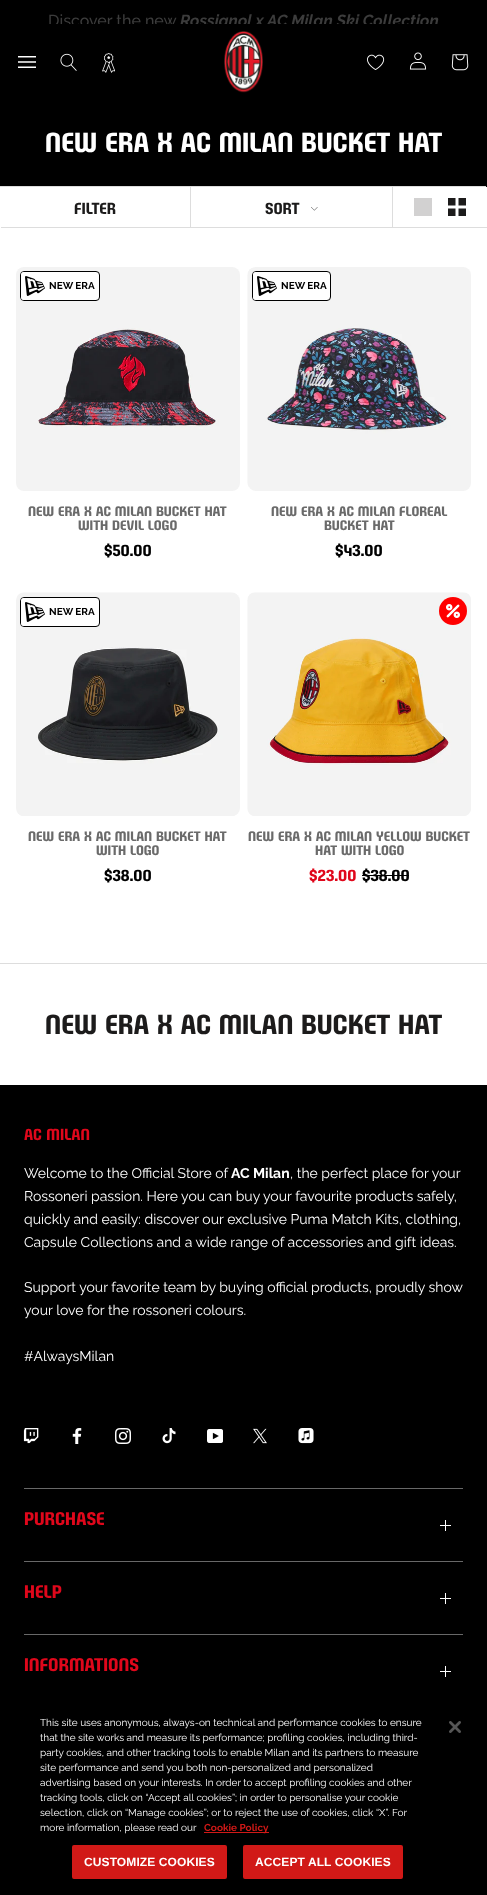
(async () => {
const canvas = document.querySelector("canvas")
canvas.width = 487
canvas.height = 1895
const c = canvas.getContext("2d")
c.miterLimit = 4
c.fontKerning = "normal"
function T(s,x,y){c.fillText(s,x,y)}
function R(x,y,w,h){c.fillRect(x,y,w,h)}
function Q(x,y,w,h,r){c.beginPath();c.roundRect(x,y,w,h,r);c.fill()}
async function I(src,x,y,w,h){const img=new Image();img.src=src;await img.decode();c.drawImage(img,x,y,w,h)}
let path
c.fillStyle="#fff"
R(0,0,487,1895)
c.fillStyle="#000"
R(0,0,487,24)
c.font="500 16px Raleway"
c.fillStyle="#3c3c3c"
T("Discover the new",48,26)
c.font="italic bold 16px Raleway"
T("Rossignol x AC Milan Ski Collection",180,26)
c.fillStyle="#000"
R(0,24,487,76)
await I("1.png",18,56,18,12)
await I("2.png",60,53,17,18)
await I("3.png",102,53,13,20)
await I("4.png",224,31,39,62)
await I("5.png",367,54,18,16)
await I("6.png",409,52,18,18)
await I("7.png",451,54,18,17)
R(0,100,487,87)
c.font="24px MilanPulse"
c.fillStyle="#fff"
T("NEW ERA X AC MILAN BUCKET HAT",45,152)
c.fillStyle="#ddd"
path = new Path2D("M-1 186v40h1v-39h486v-1z")
c.fill(path)
path = new Path2D("M1 227v1h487v-40h-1v39z")
c.fill(path)
c.font="14px MilanPulse"
c.fillStyle="#1c1b1b"
T("FILTER",74,214)
c.fillStyle="#ddd"
R(190,187,1,40)
c.fillStyle="#1c1b1b"
T("SORT",265,214)
await I("8.png",311,207,7,4)
c.fillStyle="#ddd"
R(392,187,1,40)
c.fillStyle="#d2d1d1"
R(414,198,18,18)
await I("9.png",448,198,18,18)
c.fillStyle="#f3f3f3"
Q(16,267,224,224,8)
await I("10.png",38,328,198,159)
c.fillStyle="#fff"
c.beginPath()
c.roundRect(20.5,271.5,79,29,3.5)
c.fill()
c.strokeStyle="#000"
c.stroke()
c.beginPath()
c.roundRect(21,272,28,28,[3,0,0,3])
c.fill()
await I("11.png",25,276,20,20)
c.font="bold 10px Raleway"
c.fillStyle="#000"
T("NEW ERA",49,289)
c.font="12px MilanPulse"
c.fillStyle="#6a6a6a"
T("NEW ERA X AC MILAN BUCKET HAT",28,516)
T("WITH DEVIL LOGO",78,530)
c.font="14px MilanPulse"
c.fillStyle="#000"
T("$50.00",104,556)
c.fillStyle="#f3f3f3"
Q(248,267,223,224,8)
await I("12.png",247,268,220,219)
c.fillStyle="#fff"
c.beginPath()
c.roundRect(252.5,271.5,78,29,3.5)
c.fill()
c.stroke()
c.beginPath()
c.roundRect(253,272,28,28,[3,0,0,3])
c.fill()
await I("11.png",257,276,20,20)
c.font="bold 10px Raleway"
c.fillStyle="#000"
T("NEW ERA",281,289)
c.font="12px MilanPulse"
c.fillStyle="#6a6a6a"
T("NEW ERA X AC MILAN FLOREAL",271,516)
T("BUCKET HAT",324,530)
c.font="14px MilanPulse"
c.fillStyle="#000"
T("$43.00",335,556)
c.fillStyle="#f3f3f3"
Q(16,593,224,223,8)
await I("13.png",17,592,220,224)
c.fillStyle="#fff"
c.beginPath()
c.roundRect(20.5,597.5,79,29,3.5)
c.fill()
c.stroke()
c.beginPath()
c.roundRect(21,598,28,28,[3,0,0,3])
c.fill()
await I("11.png",25,602,20,20)
c.font="bold 10px Raleway"
c.fillStyle="#000"
T("NEW ERA",49,615)
c.font="12px MilanPulse"
c.fillStyle="#6a6a6a"
T("NEW ERA X AC MILAN BUCKET HAT",28,841)
T("WITH LOGO",96,855)
c.font="14px MilanPulse"
c.fillStyle="#000"
T("$38.00",104,881)
await I("14.png",247,592,224,224)
c.fillStyle="#f00"
c.beginPath()
c.arc(453,611,14,0,7)
c.fill()
await I("15.png",446,604,14,14)
c.font="12px MilanPulse"
c.fillStyle="#6a6a6a"
T("NEW ERA X AC MILAN YELLOW BUCKET",248,841)
T("HAT WITH LOGO",315,855)
c.font="14px MilanPulse"
c.fillStyle="#e0071b"
T("$23.00",309,881)
c.fillStyle="#000"
T("$38.00",362,881)
R(362,875,47,1)
c.fillStyle="#ddd"
R(0,963,487,1)
c.font="24px MilanPulse"
c.fillStyle="#1c1b1b"
T("NEW ERA X AC MILAN BUCKET HAT",45,1034)
c.fillStyle="#000"
R(0,1085,487,810)
c.font="14px MilanPulse"
c.fillStyle="#e0071b"
T("AC MILAN",24,1140)
c.font="14px Raleway"
c.fillStyle="#fff"
T("Welcome to the Official Store of",24,1178)
c.font="bold 14px Raleway"
T("AC Milan",231,1178)
c.font="14px Raleway"
T(", the perfect place for your",290,1178)
T("Rossoneri passion. Here you can buy your favourite products safely,",24,1201)
T("quickly and easily: discover our exclusive Puma Match Kits, clothing,",24,1224)
T("Capsule Collections and a wide range of accessories and gift ideas.",24,1247)
T("Support your favorite team by buying official products, proudly show",24,1292)
T("your love for the rossoneri colours.",24,1315)
T("#AlwaysMilan",24,1361)
await I("16.png",23,1428,16,16)
await I("17.png",72,1428,10,16)
await I("18.png",115,1428,16,16)
await I("19.png",162,1428,14,16)
await I("20.png",207,1429,16,14)
await I("21.png",253,1428,14,16)
await I("22.png",298,1428,16,16)
c.fillStyle="#686868"
R(24,1488,439,1)
R(24,1561,439,1)
c.font="16px MilanPulse"
c.fillStyle="#e0071b"
T("PURCHASE",24,1525)
c.fillStyle="#fff"
R(445,1520,1,11)
R(440,1525,11,1)
c.fillStyle="#686868"
R(24,1634,439,1)
c.fillStyle="#e0071b"
T("HELP",24,1598)
c.fillStyle="#fff"
R(445,1593,1,11)
R(440,1598,11,1)
c.fillStyle="#e0071b"
T("INFORMATIONS",24,1671)
c.fillStyle="#fff"
R(445,1666,1,11)
R(440,1671,11,1)
c.font="10px Raleway"
T("This site uses anonymous, always-on technical and performance cookies to ensure",40,1726)
T("that the site works and measure its performance; profiling cookies, including third-",40,1741)
T("party cookies, and other tracking tools to enable Milan and its partners to measure",40,1756)
T("site performance and send you both non-personalized and personalized",40,1771)
T("advertising based on your interests. In order to accept profiling cookies and other",40,1786)
T("tracking tools, click on “Accept all cookies”; in order to personalise your cookie",40,1801)
T("selection, click on “Manage cookies”; or to reject the use of cookies, click “X”. For",40,1816)
T("more information, please read our",40,1831)
c.fillStyle="#d11917"
R(204,1832,65,1)
c.font="bold 10px Raleway"
T("Cookie Policy",204,1831)
c.beginPath()
c.roundRect(73,1846,153,32,1)
c.fill()
c.strokeStyle="#d11917"
c.lineWidth=2
c.stroke()
c.letterSpacing="0.1px"
c.font="bold 12px Liberation Sans"
c.fillStyle="#fff"
T("CUSTOMIZE COOKIES",84,1866)
c.fillStyle="#d11917"
c.beginPath()
c.roundRect(244,1846,158,32,1)
c.fill()
c.stroke()
c.fillStyle="#fff"
T("ACCEPT ALL COOKIES",255,1866)
await I("23.png",449,1721,12,12)
})()
